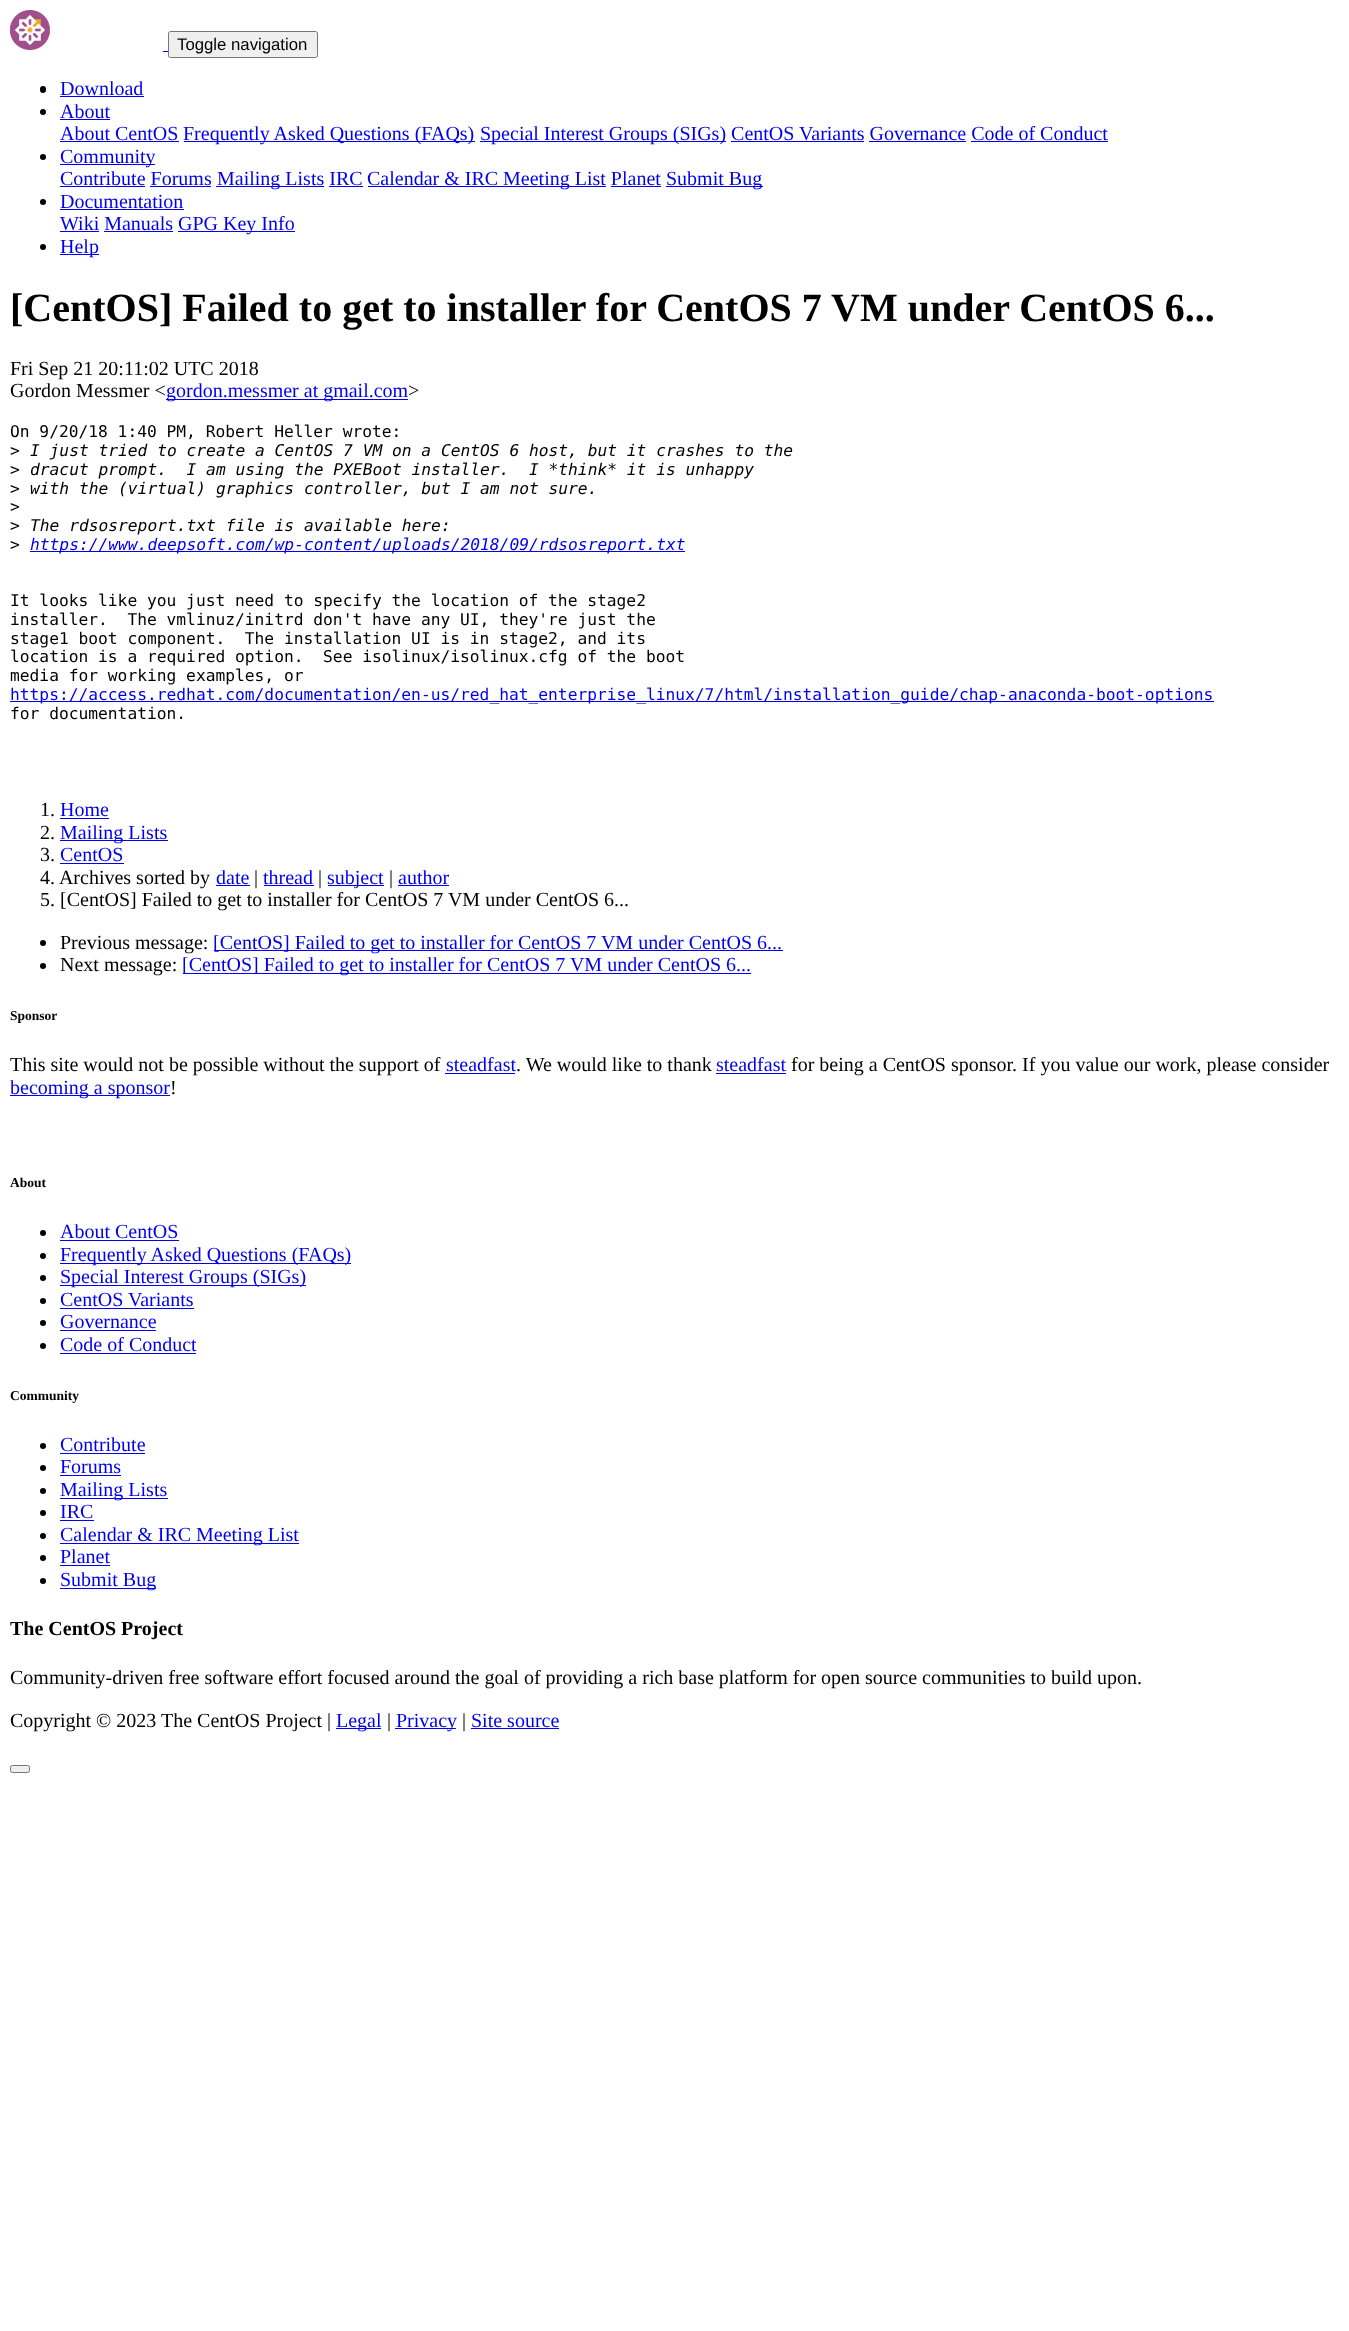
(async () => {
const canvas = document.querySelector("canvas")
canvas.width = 1349
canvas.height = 2331
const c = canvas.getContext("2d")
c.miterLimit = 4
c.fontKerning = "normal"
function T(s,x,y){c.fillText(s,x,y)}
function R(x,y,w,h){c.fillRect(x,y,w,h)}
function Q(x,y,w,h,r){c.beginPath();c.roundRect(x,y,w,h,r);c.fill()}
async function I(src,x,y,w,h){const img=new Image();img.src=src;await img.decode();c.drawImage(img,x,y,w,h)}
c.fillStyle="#fff"
R(0,0,1349,2331)
await I("1.png",10,10,40,40)
c.fillStyle="#00e"
R(163,51,5,1)
c.fillStyle="#efefef"
c.beginPath()
c.roundRect(168.5,31.5,149,26,2)
c.fill()
c.strokeStyle="#767676"
c.stroke()
c.font="16.75px Liberation Sans"
c.fillStyle="#000"
T("Toggle navigation",177,50)
Q(40,86,6,7,3)
c.font="20px Liberation Serif"
c.fillStyle="#00e"
T("Download",60,95)
R(60,96,84,1)
c.fillStyle="#000"
c.beginPath()
c.arc(43,112,3,0,7)
c.fill()
c.fillStyle="#00e"
T("About",60,118)
R(60,119,50,1)
T("About CentOS",60,140)
R(60,141,119,1)
R(184,141,291,1)
T("Frequently Asked Questions (FAQs)",183,140)
R(480,141,246,1)
T("Special Interest Groups (SIGs) CentOS Variants Governance Code of Conduct",480,140)
R(731,141,133,1)
R(869,141,97,1)
R(971,141,137,1)
c.fillStyle="#000"
c.beginPath()
c.arc(43,157,3,0,7)
c.fill()
c.fillStyle="#00e"
R(60,164,95,1)
T("Community",60,163)
T("Contribute Forums",60,185)
R(60,186,85,1)
R(216,186,108,1)
T("Mailing Lists IRC",217,185)
R(368,186,238,1)
T("Calendar & IRC Meeting List Planet",367,185)
R(666,186,97,1)
T("Submit Bug",666,185)
R(150,186,61,1)
R(329,186,34,1)
R(611,186,50,1)
c.fillStyle="#000"
c.beginPath()
c.arc(43,202,3,0,7)
c.fill()
c.fillStyle="#00e"
T("Documentation",60,208)
R(60,209,124,1)
T("Wiki Manuals",60,230)
R(60,231,39,1)
R(178,231,117,1)
T("GPG Key Info",178,230)
R(104,231,69,1)
c.fillStyle="#000"
c.beginPath()
c.arc(43,247,3,0,7)
c.fill()
c.fillStyle="#00e"
R(60,254,39,1)
T("Help",60,253)
c.font="bold 40px Liberation Serif"
c.fillStyle="#000"
T("[CentOS] Failed to get to installer for CentOS 7 VM under CentOS 6...",10,321)
c.font="20px Liberation Serif"
T("Fri Sep 21 20:11:02 UTC 2018",10,375)
T("Gordon Messmer <",10,397)
c.fillStyle="#00e"
R(166,399,242,1)
T("gordon.messmer at gmail.com",166,397)
c.fillStyle="#000"
T(">",408,397)
c.font="16.25px DejaVu Sans Mono"
T("On 9/20/18 1:40 PM, Robert Heller wrote:",10,437)
T(">",10,456)
c.font="italic 16.25px DejaVu Sans Mono"
T("I just tried to create a CentOS 7 VM on a CentOS 6 host, but it crashes to the",30,456)
c.font="16.25px DejaVu Sans Mono"
T(">",10,475)
c.font="italic 16.25px DejaVu Sans Mono"
T("dracut prompt.  I am using the PXEBoot installer.  I *think* it is unhappy",30,475)
c.font="16.25px DejaVu Sans Mono"
T(">",10,494)
c.font="italic 16.25px DejaVu Sans Mono"
T("with the (virtual) graphics controller, but I am not sure.",30,494)
c.font="16.25px DejaVu Sans Mono"
T(">",10,512)
T(">",10,531)
c.font="italic 16.25px DejaVu Sans Mono"
T("The rdsosreport.txt file is available here:",30,531)
c.font="16.25px DejaVu Sans Mono"
T(">",10,550)
c.fillStyle="#00e"
R(30,551,655,1)
c.font="italic 16.25px DejaVu Sans Mono"
T("https://www.deepsoft.com/wp-content/uploads/2018/09/rdsosreport.txt",30,550)
c.font="16.25px DejaVu Sans Mono"
c.fillStyle="#000"
T("It looks like you just need to specify the location of the stage2",10,606)
T("installer.  The vmlinuz/initrd don't have any UI, they're just the",10,625)
T("stage1 boot component.  The installation UI is in stage2, and its",10,644)
T("location is a required option.  See isolinux/isolinux.cfg of the boot",10,662)
T("media for working examples, or",10,681)
c.fillStyle="#00e"
R(10,701,1204,1)
T("https://access.redhat.com/documentation/en-us/red_hat_enterprise_linux/7/html/installation_guide/chap-anaconda-boot-options",10,700)
c.fillStyle="#000"
T("for documentation.",10,719)
c.font="20px Liberation Serif"
T("1.",40,816)
c.fillStyle="#00e"
T("Home",60,816)
R(60,818,49,1)
c.fillStyle="#000"
T("2.",40,839)
c.fillStyle="#00e"
R(60,840,108,1)
T("Mailing Lists",60,839)
c.fillStyle="#000"
T("3.",40,861)
c.fillStyle="#00e"
T("CentOS",60,861)
R(60,863,64,1)
c.fillStyle="#000"
T("4. Archives sorted by",40,884)
c.fillStyle="#00e"
T("date",216,884)
R(216,885,34,1)
c.fillStyle="#000"
T("|",254,884)
c.fillStyle="#00e"
T("thread",263,884)
R(264,885,50,1)
c.fillStyle="#000"
T("|",318,884)
c.fillStyle="#00e"
R(328,885,56,1)
T("subject",327,884)
c.fillStyle="#000"
T("|",389,884)
c.fillStyle="#00e"
T("author",398,884)
R(398,885,51,1)
c.fillStyle="#000"
T("5. [CentOS] Failed to get to installer for CentOS 7 VM under CentOS 6...",40,906)
c.beginPath()
c.arc(43,943,3,0,7)
c.fill()
T("Previous message:",60,949)
c.fillStyle="#00e"
R(214,950,569,1)
T("[CentOS] Failed to get to installer for CentOS 7 VM under CentOS 6...",213,949)
c.fillStyle="#000"
c.beginPath()
c.arc(43,966,3,0,7)
c.fill()
T("Next message:",60,971)
c.fillStyle="#00e"
R(183,973,568,1)
T("[CentOS] Failed to get to installer for CentOS 7 VM under CentOS 6...",182,971)
c.font="bold 13.5px Liberation Serif"
c.fillStyle="#000"
T("Sponsor",10,1020)
c.font="20px Liberation Serif"
T("This site would not be possible without the support of",10,1071)
c.fillStyle="#00e"
T("steadfast",446,1071)
R(445,1073,70,1)
c.fillStyle="#000"
T(". We would like to thank",516,1071)
c.fillStyle="#00e"
T("steadfast",716,1071)
R(716,1073,70,1)
c.fillStyle="#000"
T("for being a CentOS sponsor. If you value our work, please consider",791,1071)
c.fillStyle="#00e"
R(10,1095,160,1)
T("becoming a sponsor",10,1094)
c.fillStyle="#000"
T("!",170,1094)
c.font="bold 13.5px Liberation Serif"
T("About",10,1187)
c.beginPath()
c.arc(43,1233,3,0,7)
c.fill()
c.font="20px Liberation Serif"
c.fillStyle="#00e"
T("About CentOS",60,1238)
R(60,1240,119,1)
c.fillStyle="#000"
c.beginPath()
c.arc(43,1256,3,0,7)
c.fill()
c.fillStyle="#00e"
R(60,1263,291,1)
T("Frequently Asked Questions (FAQs)",60,1261)
c.fillStyle="#000"
c.beginPath()
c.arc(43,1278,3,0,7)
c.fill()
c.fillStyle="#00e"
R(60,1285,246,1)
T("Special Interest Groups (SIGs)",60,1283)
c.fillStyle="#000"
c.beginPath()
c.arc(43,1301,3,0,7)
c.fill()
c.fillStyle="#00e"
T("CentOS Variants",60,1306)
R(60,1308,134,1)
c.fillStyle="#000"
c.beginPath()
c.arc(43,1323,3,0,7)
c.fill()
c.fillStyle="#00e"
T("Governance",60,1328)
R(60,1330,96,1)
c.fillStyle="#000"
c.beginPath()
c.arc(43,1346,3,0,7)
c.fill()
c.fillStyle="#00e"
T("Code of Conduct",60,1351)
R(60,1353,136,1)
c.font="bold 13.5px Liberation Serif"
c.fillStyle="#000"
T("Community",10,1400)
c.beginPath()
c.arc(43,1446,3,0,7)
c.fill()
c.font="20px Liberation Serif"
c.fillStyle="#00e"
T("Contribute",60,1451)
R(60,1453,85,1)
c.fillStyle="#000"
c.beginPath()
c.arc(43,1468,3,0,7)
c.fill()
c.fillStyle="#00e"
T("Forums",60,1473)
R(60,1475,61,1)
c.fillStyle="#000"
c.beginPath()
c.arc(43,1491,3,0,7)
c.fill()
c.fillStyle="#00e"
R(60,1498,108,1)
T("Mailing Lists",60,1496)
c.fillStyle="#000"
c.beginPath()
c.arc(43,1513,3,0,7)
c.fill()
c.fillStyle="#00e"
T("IRC",60,1518)
R(60,1520,34,1)
c.fillStyle="#000"
c.beginPath()
c.arc(43,1536,3,0,7)
c.fill()
c.fillStyle="#00e"
R(60,1543,239,1)
T("Calendar & IRC Meeting List",60,1541)
c.fillStyle="#000"
c.beginPath()
c.arc(43,1558,3,0,7)
c.fill()
c.fillStyle="#00e"
T("Planet",60,1563)
R(60,1565,50,1)
c.fillStyle="#000"
c.beginPath()
c.arc(43,1581,3,0,7)
c.fill()
c.fillStyle="#00e"
R(60,1588,96,1)
T("Submit Bug",60,1586)
c.font="bold 20px Liberation Serif"
c.fillStyle="#000"
T("The CentOS Project",10,1635)
c.font="20px Liberation Serif"
T("Community-driven free software effort focused around the goal of providing a rich base platform for open source communities to build upon.",10,1684)
T("Copyright © 2023 The CentOS Project |",10,1727)
c.fillStyle="#00e"
R(336,1728,45,1)
T("Legal",336,1727)
c.fillStyle="#000"
T("|",387,1727)
c.fillStyle="#00e"
R(395,1728,61,1)
T("Privacy",396,1727)
c.fillStyle="#000"
T("|",462,1727)
c.fillStyle="#00e"
T("Site source",471,1727)
R(471,1728,88,1)
c.fillStyle="#efefef"
c.beginPath()
c.roundRect(10.5,1765.5,19,7,2)
c.fill()
c.stroke()
})()
